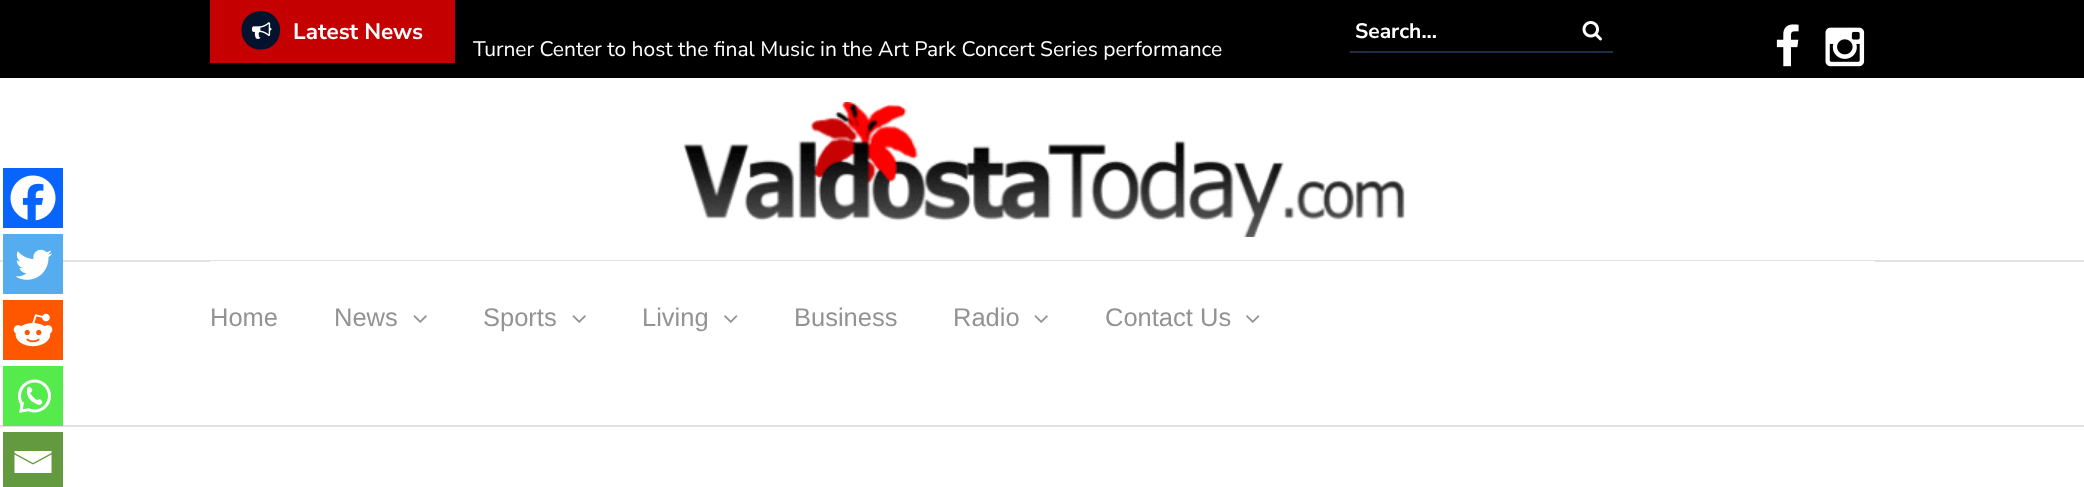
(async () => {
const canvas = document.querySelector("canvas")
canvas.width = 2084
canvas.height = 487
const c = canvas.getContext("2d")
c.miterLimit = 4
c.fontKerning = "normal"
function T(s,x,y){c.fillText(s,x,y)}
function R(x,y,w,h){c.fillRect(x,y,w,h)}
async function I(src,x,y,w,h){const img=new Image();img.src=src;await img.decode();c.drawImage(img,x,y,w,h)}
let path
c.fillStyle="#fff"
R(0,0,2084,487)
c.fillStyle="#000"
R(0,0,2084,78)
c.fillStyle="#c40000"
R(210,0,245,63)
c.fillStyle="#04132d"
path = new Path2D("M277.5 20.5c2 3.5 3 7.5 2.5 11c-1 19-26.5 25-36 8.5c-2-3-2.5-7-2.5-11c1-19 26.5-24.5 36-8.5z")
c.fill(path)
await I("1.png",252,22,20,17)
c.font="bold 22.5px Nunito Sans"
c.fillStyle="#fff"
T("Latest News",293,39)
c.font="21px Nunito Sans"
T("Turner Center to host the final Music in the Art Park Concert Series performance",473,56)
c.fillStyle="#202d44"
R(1350,51,263,2)
c.font="bold 21px Nunito Sans"
c.fillStyle="#fff"
T("Search...",1355,38)
await I("2.png",1582,21,20,20)
await I("3.png",1776,24,23,43)
await I("4.png",1825,27,40,40)
c.fillStyle="#0765fe"
R(3,168,60,60)
await I("5.png",10,175,46,46)
c.fillStyle="#e1e1e1"
R(0,260,2084,2)
c.fillStyle="#55acee"
R(3,234,60,60)
await I("6.png",15,249,38,31)
c.fillStyle="#ff5700"
R(3,300,60,60)
await I("7.png",13,313,40,34)
c.fillStyle="#e1e1e1"
R(0,425,2084,2)
c.fillStyle="#55eb4c"
R(3,366,60,60)
await I("8.png",18,379,33,34)
c.fillStyle="#649a3f"
R(3,432,60,55)
c.fillStyle="#fff"
path = new Path2D("M13 451h38.5v2l-18.5 10l-18.5-10v-2m0 3.5l18.5 10l18.5-10v18.5h-37v-18.5")
c.fill(path)
await I("9.png",683,102,722,135)
R(210,261,1665,1)
c.font="25.5px Liberation Sans"
c.fillStyle="#939393"
T("Home",210,326)
T("News",334,326)
await I("10.png",413,315,14,8)
T("Sports",483,326)
await I("10.png",572,315,14,8)
T("Living",642,326)
await I("11.png",724,315,14,8)
T("Business",794,326)
T("Radio",953,326)
await I("10.png",1034,315,14,8)
T("Contact Us",1105,326)
await I("11.png",1246,315,14,8)
})()
